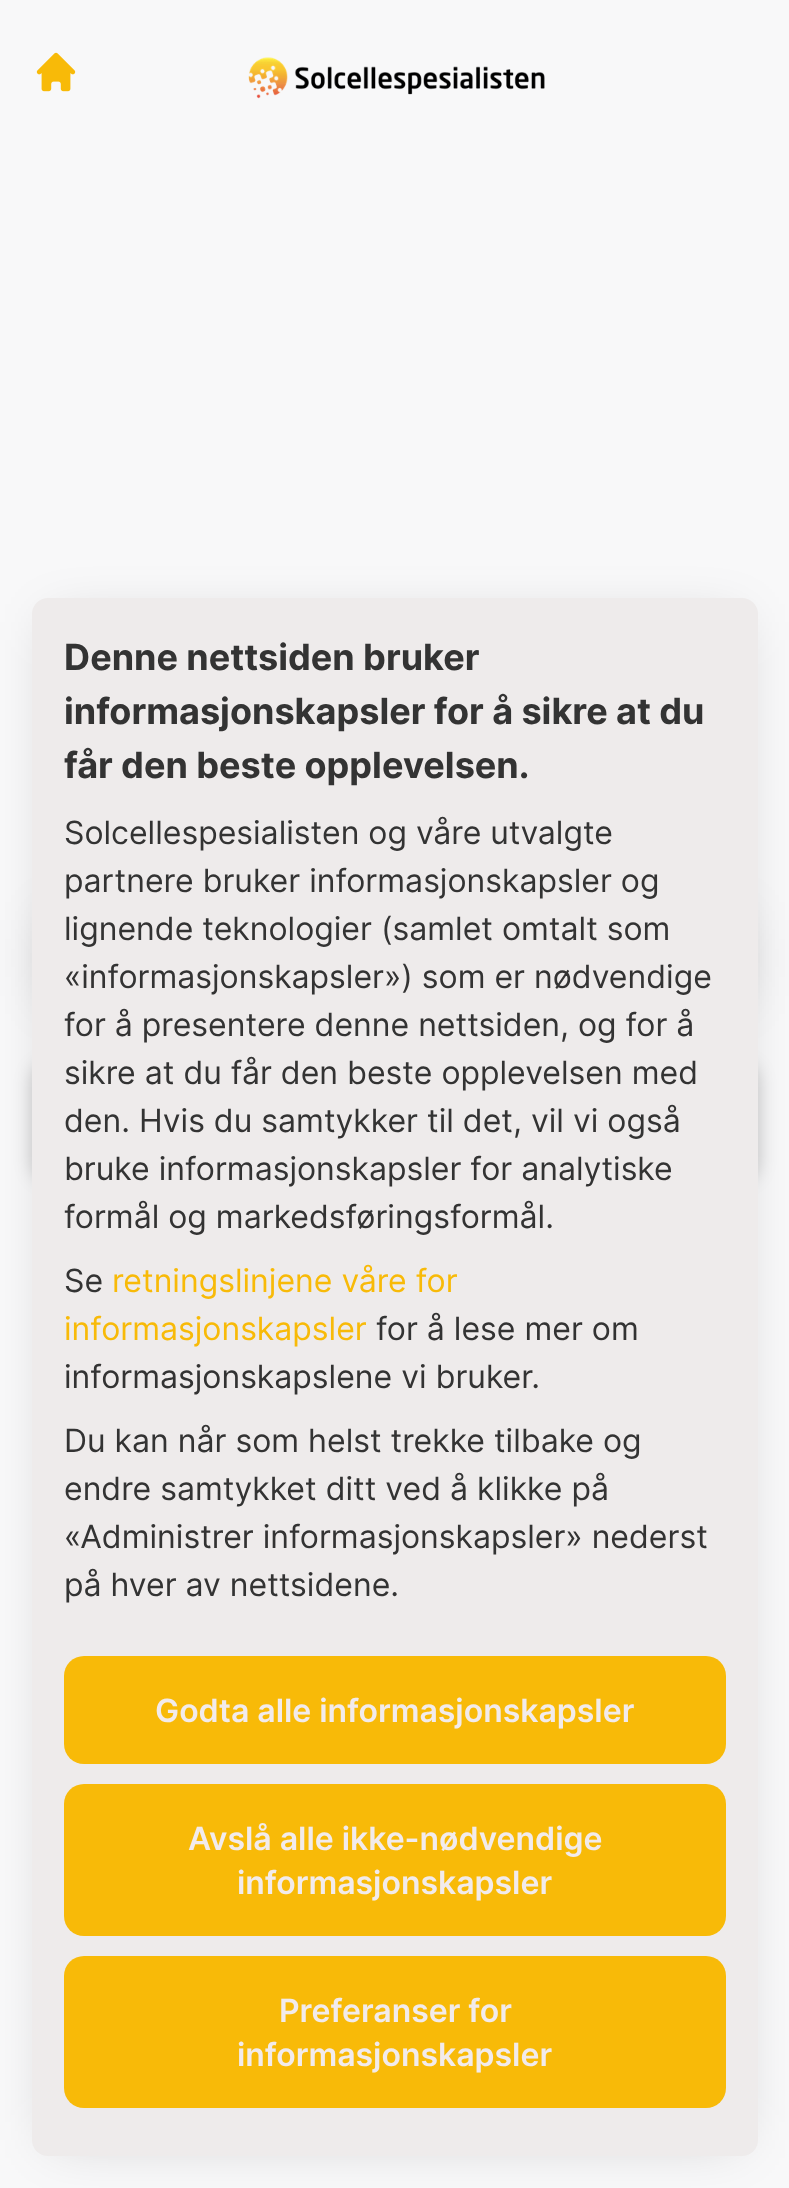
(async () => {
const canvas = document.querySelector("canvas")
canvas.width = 789
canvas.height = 2188
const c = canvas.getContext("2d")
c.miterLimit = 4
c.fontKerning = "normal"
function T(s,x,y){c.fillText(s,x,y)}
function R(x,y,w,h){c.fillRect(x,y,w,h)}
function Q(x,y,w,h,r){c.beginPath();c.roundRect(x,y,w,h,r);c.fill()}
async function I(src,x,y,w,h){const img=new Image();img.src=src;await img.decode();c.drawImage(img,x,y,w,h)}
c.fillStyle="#f8f8f9"
R(0,0,789,2188)
await I("1.png",36,52,40,40)
await I("2.png",248,57,297,42)
c.fillStyle="#0000002e"
c.filter="blur(27px)"
c.beginPath()
c.rect(52,920,686,76)
c.fill()
c.filter="none"
c.filter="blur(9px)"
c.beginPath()
c.roundRect(32,1064,726,116,16)
c.fill()
c.filter="none"
c.filter="blur(27px)"
c.beginPath()
c.rect(52,622,686,1518)
c.fill()
c.filter="none"
c.fillStyle="#eeebeb"
Q(32,598,726,1558,16)
c.font="bold 36px Inter"
c.fillStyle="#333"
T("Denne nettsiden bruker",64,670)
T("informasjonskapsler for å sikre at du",64,724)
T("får den beste opplevelsen.",64,778)
c.font="32px Inter"
T("Solcellespesialisten og våre utvalgte",64,844)
T("partnere bruker informasjonskapsler og",64,892)
T("lignende teknologier (samlet omtalt som",64,940)
T("«informasjonskapsler») som er nødvendige",64,988)
T("for å presentere denne nettsiden, og for å",64,1036)
T("sikre at du får den beste opplevelsen med",64,1084)
T("den. Hvis du samtykker til det, vil vi også",64,1132)
T("bruke informasjonskapsler for analytiske",64,1180)
T("formål og markedsføringsformål.",64,1228)
T("Se",64,1292)
c.fillStyle="#f8ba08"
T("retningslinjene våre for",112,1292)
T("informasjonskapsler",64,1340)
c.fillStyle="#333"
T("for å lese mer om",376,1340)
T("informasjonskapslene vi bruker.",64,1388)
T("Du kan når som helst trekke tilbake og",64,1452)
T("endre samtykket ditt ved å klikke på",64,1500)
T("«Administrer informasjonskapsler» nederst",64,1548)
T("på hver av nettsidene.",64,1596)
c.fillStyle="#f8ba08"
Q(64,1656,662,108,20)
c.font="600 32px Inter"
c.fillStyle="#f2ebeb"
T("Godta alle informasjonskapsler",155,1722)
c.fillStyle="#f8ba08"
Q(64,1784,662,152,20)
c.fillStyle="#f2ebeb"
T("Avslå alle ikke-nødvendige",188,1850)
T("informasjonskapsler",237,1894)
c.fillStyle="#f8ba08"
Q(64,1956,662,152,20)
c.fillStyle="#f2ebeb"
T("Preferanser for",279,2022)
T("informasjonskapsler",237,2066)
})()
